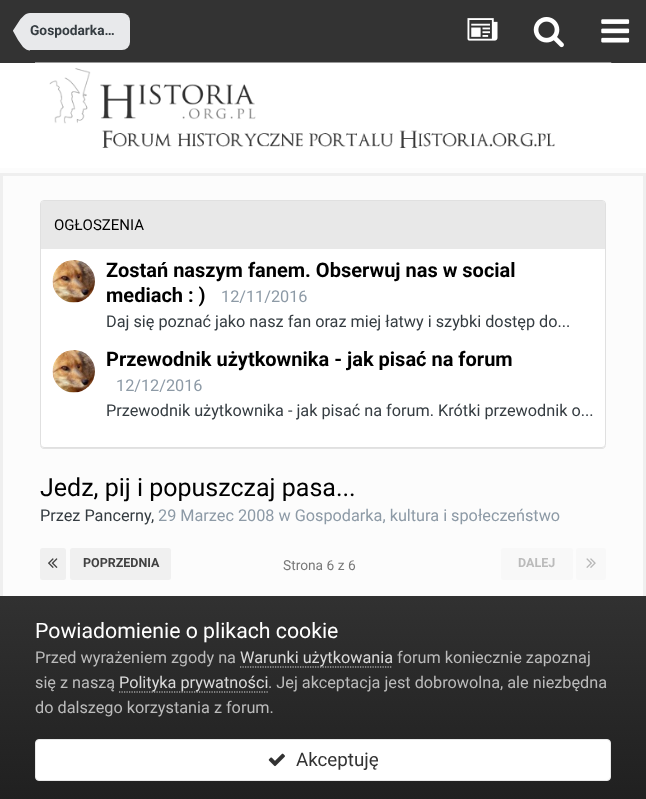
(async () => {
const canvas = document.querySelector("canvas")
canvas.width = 646
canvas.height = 799
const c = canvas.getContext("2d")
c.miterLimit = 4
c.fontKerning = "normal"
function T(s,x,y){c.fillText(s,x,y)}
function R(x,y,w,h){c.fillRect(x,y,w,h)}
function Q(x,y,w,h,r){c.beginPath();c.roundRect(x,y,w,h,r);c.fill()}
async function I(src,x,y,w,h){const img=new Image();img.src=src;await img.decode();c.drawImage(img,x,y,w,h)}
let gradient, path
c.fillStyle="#fcfcfc"
R(0,0,646,799)
c.fillStyle="#333"
R(0,0,646,63)
c.fillStyle="#e8e9eb"
c.beginPath()
c.roundRect(30,13,100,37,[0,8,8,0])
c.fill()
path = new Path2D("M13 31h17v19.5c-2 0-4.5-1-7-3.5l-5-7zm17-18v18h-17v-.5l7.5-11.5l3.5-3.5c1.5-1.5 3.5-2.5 6-2.5z")
c.fill(path)
c.font="bold 13.75px Roboto"
c.fillStyle="#353c41"
T("Gospodarka…",30,35)
await I("1.png",467,18,31,23)
await I("2.png",533,17,31,31)
await I("3.png",601,19,29,24)
c.fillStyle="#fff"
R(0,63,646,105)
await I("4.png",35,62,577,86)
c.strokeStyle="#efefef"
c.lineWidth=3
c.strokeRect(1.5,174.5,643,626)
c.fillStyle="#e3e3e3"
path = new Path2D("M40 444v1c0 2 2 4 4 4h558c2 0 4-2 4-4c-1 2-2 3-4 3h-558c-2 0-4-2-4-4z")
c.fill(path)
c.fillStyle="#fff"
c.beginPath()
c.roundRect(40.5,200.5,565,247,3.5)
c.fill()
c.strokeStyle="#e0e0e0"
c.lineWidth=1
c.stroke()
c.fillStyle="#e8e8e8"
c.beginPath()
c.roundRect(41,201,564,48,[2.5,2.5,0,0])
c.fill()
c.font="15px Roboto"
c.fillStyle="#000"
T("OGŁOSZENIA",54,230)
await I("5.png",52,260,43,43)
c.font="bold 20px Roboto"
T("Zostań naszym fanem. Obserwuj nas w social",106,277)
T("mediach : )",106,302)
c.font="16.25px Roboto"
c.fillStyle="#8d9aa6"
T("12/11/2016",221,302)
c.fillStyle="#353c41"
T("Daj się poznać jako nasz fan oraz miej łatwy i szybki dostęp do...",106,327)
await I("6.png",52,350,43,43)
c.font="bold 20px Roboto"
c.fillStyle="#000"
T("Przewodnik użytkownika - jak pisać na forum",106,366)
c.font="16.25px Roboto"
c.fillStyle="#8d9aa6"
T("12/12/2016",116,391)
c.fillStyle="#353c41"
T("Przewodnik użytkownika - jak pisać na forum. Krótki przewodnik o...",106,416)
c.font="25px Roboto"
c.fillStyle="#000"
T("Jedz, pij i popuszczaj pasa...",40,496)
c.font="16.25px Roboto"
c.fillStyle="#353c41"
T("Przez Pancerny",40,521)
T(",",151,521)
c.fillStyle="#8d9aa6"
T("29 Marzec 2008 w Gospodarka, kultura i społeczeństwo",158,521)
c.fillStyle="#f0f0f0"
Q(40,548,26,32,2.5)
await I("7.png",48,558,10,10)
Q(70,548,101,32,2.5)
c.font="bold 12.5px Roboto"
c.fillStyle="#414141"
T("POPRZEDNIA",83,567)
c.font="13.75px Roboto"
c.fillStyle="#787878"
T("Strona 6 z 6",283,570)
c.fillStyle="#f8f8f8"
Q(501,548,72,32,2.5)
c.font="bold 12.5px Roboto"
c.fillStyle="#bbb"
T("DALEJ",518,567)
c.fillStyle="#f8f8f8"
Q(576,548,30,32,2.5)
await I("8.png",586,558,10,10)
gradient = c.createLinearGradient(323,596,323,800)
gradient.addColorStop(0,"#313131")
gradient.addColorStop(1,"#202020")
c.fillStyle = gradient
R(0,596,646,203)
c.font="21.25px Roboto"
c.fillStyle="#fff"
T("Powiadomienie o plikach cookie",35,638)
c.font="16.25px Roboto"
c.fillStyle="#bbb"
T("Przed wyrażeniem zgody na",35,663)
path = new Path2D("M240 667h152.5")
c.strokeStyle="#dadada"
c.lineWidth=1.2
c.setLineDash([1.25,1.25])
c.stroke(path)
c.fillStyle="#dadada"
T("Warunki użytkowania",240,663)
c.fillStyle="#bbb"
T("forum koniecznie zapoznaj",397,663)
T("się z naszą",35,688)
path = new Path2D("M119 692h150")
c.stroke(path)
c.fillStyle="#dadada"
T("Polityka prywatności",119,688)
c.fillStyle="#bbb"
T(". Jej akceptacja jest dobrowolna, ale niezbędna",268,688)
T("do dalszego korzystania z forum.",35,713)
c.fillStyle="#fff"
c.beginPath()
c.roundRect(35.5,739.5,575,41,3.5)
c.fill()
c.strokeStyle="#e8e8e8"
c.lineWidth=1
c.setLineDash([])
c.stroke()
await I("9.png",268,753,17,14)
c.font="18.75px Roboto"
c.fillStyle="#333"
T("Akceptuję",296,766)
})()
